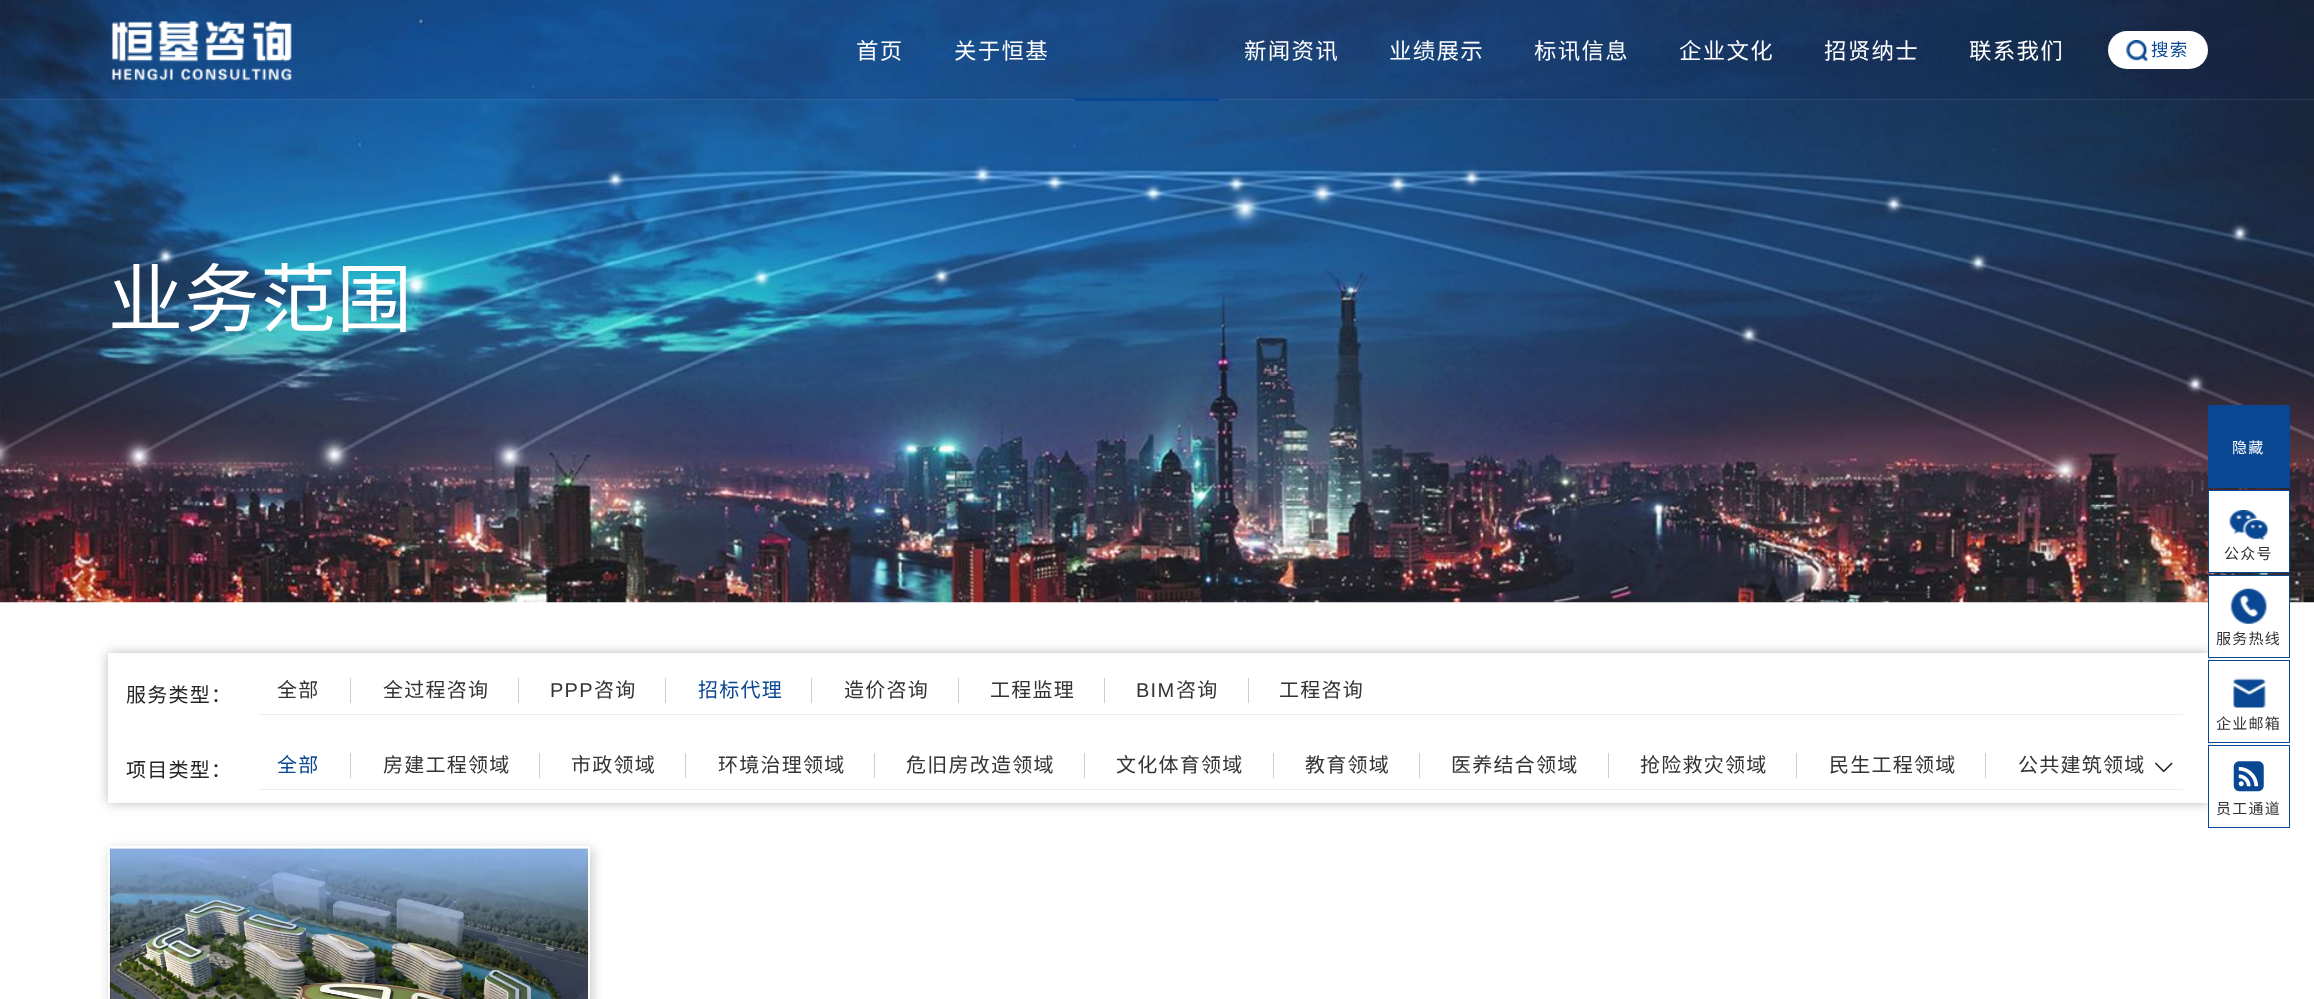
(async () => {
const canvas = document.querySelector("canvas")
canvas.width = 2314
canvas.height = 999
const c = canvas.getContext("2d")
c.miterLimit = 4
c.fontKerning = "normal"
function T(s,x,y){c.fillText(s,x,y)}
function R(x,y,w,h){c.fillRect(x,y,w,h)}
function Q(x,y,w,h,r){c.beginPath();c.roundRect(x,y,w,h,r);c.fill()}
async function I(src,x,y,w,h){const img=new Image();img.src=src;await img.decode();c.drawImage(img,x,y,w,h)}
let path
c.fillStyle="#fff"
R(0,0,2314,999)
await I("3.png",0,0,2314,603)
c.fillStyle="#070c461a"
R(0,0,2314,100)
c.fillStyle="#ffffff1a"
R(0,99,2314,1)
await I("1.png",111,21,181,60)
c.letterSpacing="1.25px"
c.font="22.5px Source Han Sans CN"
c.fillStyle="#fff"
T("首页",856,59)
T("关于恒基",954,59)
T("新闻资讯",1244,59)
T("业绩展示",1389,59)
T("标讯信息",1534,59)
T("企业文化",1679,59)
T("招贤纳士",1824,59)
T("联系我们",1969,59)
c.fillStyle="#094792"
R(1074,98,145,3)
c.fillStyle="#fff"
Q(2108,31,100,38,19)
await I("2.png",2126,40,22,22)
c.font="17.5px Noto Sans CJK SC"
c.fillStyle="#094792"
T("搜索",2151,56)
c.font="75px Noto Sans CJK SC"
c.fillStyle="#fff"
T("业务范围",108,326)
c.save()
path = new Path2D("M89 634h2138v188h-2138zm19 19h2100v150h-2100z")
c.clip(path,"evenodd")
c.fillStyle="#b9b9b9"
c.filter="blur(6px)"
c.beginPath()
c.rect(108,653,2100,150)
c.fill()
c.filter="none"
c.restore()
c.font="20px Noto Sans CJK SC"
c.fillStyle="#262626"
T("服务类型：",126,702)
c.fillStyle="#eee"
R(258,714,1925,1)
c.fillStyle="#333"
T("全部",277,697)
c.fillStyle="#ccc"
R(350,678,1,25)
c.fillStyle="#333"
T("全过程咨询",383,697)
c.fillStyle="#ccc"
R(518,678,1,25)
c.font="20px Liberation Sans"
c.fillStyle="#333"
T("PPP",550,697)
c.font="20px Noto Sans CJK SC"
T("咨询",594,697)
c.fillStyle="#ccc"
R(665,678,1,25)
c.fillStyle="#094792"
T("招标代理",698,697)
c.fillStyle="#ccc"
R(811,678,1,25)
c.fillStyle="#333"
T("造价咨询",844,697)
c.fillStyle="#ccc"
R(958,678,1,25)
c.fillStyle="#333"
T("工程监理",990,697)
c.fillStyle="#ccc"
R(1104,678,1,25)
c.font="20px Liberation Sans"
c.fillStyle="#333"
T("BIM",1136,697)
c.font="20px Noto Sans CJK SC"
T("咨询",1176,697)
c.fillStyle="#ccc"
R(1248,678,1,25)
c.fillStyle="#333"
T("工程咨询",1279,697)
c.fillStyle="#262626"
T("项目类型：",126,777)
c.fillStyle="#eee"
R(258,789,1925,1)
c.fillStyle="#094792"
T("全部",277,772)
c.fillStyle="#ccc"
R(350,753,1,25)
c.fillStyle="#333"
T("房建工程领域",383,772)
c.fillStyle="#ccc"
R(539,753,1,25)
c.fillStyle="#333"
T("市政领域",571,772)
c.fillStyle="#ccc"
R(685,753,1,25)
c.fillStyle="#333"
T("环境治理领域",718,772)
c.fillStyle="#ccc"
R(874,753,1,25)
c.fillStyle="#333"
T("危旧房改造领域",906,772)
c.fillStyle="#ccc"
R(1084,753,1,25)
c.fillStyle="#333"
T("文化体育领域",1116,772)
c.fillStyle="#ccc"
R(1273,753,1,25)
c.fillStyle="#333"
T("教育领域",1305,772)
c.fillStyle="#ccc"
R(1419,753,1,25)
c.fillStyle="#333"
T("医养结合领域",1451,772)
c.fillStyle="#ccc"
R(1608,753,1,25)
c.fillStyle="#333"
T("抢险救灾领域",1640,772)
c.fillStyle="#ccc"
R(1796,753,1,25)
c.fillStyle="#333"
T("民生工程领域",1829,772)
c.fillStyle="#ccc"
R(1985,753,1,25)
c.fillStyle="#333"
T("公共建筑领域",2018,772)
await I("4.png",2155,762,18,11)
c.fillStyle="#094792"
R(2208,405,82,83)
c.font="15px Noto Sans CJK SC"
c.fillStyle="#fff"
T("隐藏",2232,453)
R(2209,491,80,81)
await I("5.png",2229,510,39,30)
c.strokeStyle="#094792"
c.strokeRect(2208.5,490.5,81,82)
c.fillStyle="#333"
T("公众号",2224,559)
c.fillStyle="#fff"
R(2209,576,80,81)
await I("6.png",2230,588,37,36)
c.strokeRect(2208.5,575.5,81,82)
c.fillStyle="#333"
T("服务热线",2216,644)
c.fillStyle="#fff"
R(2209,661,10,81)
await I("7.png",2233,678,33,30)
c.strokeRect(2208.5,660.5,81,82)
c.fillStyle="#333"
T("企业邮箱",2216,729)
c.fillStyle="#fff"
R(2209,746,10,65)
c.strokeRect(2208.5,745.5,81,82)
await I("8.png",2233,761,31,31)
c.fillStyle="#333"
T("员工通道",2216,814)
c.fillStyle="#00000033"
c.filter="blur(6px)"
c.beginPath()
c.rect(110,849,483,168)
c.fill()
c.filter="none"
c.fillStyle="#fff"
R(108,846,482,153)
await I("9.png",108,847,481,152)
})()
